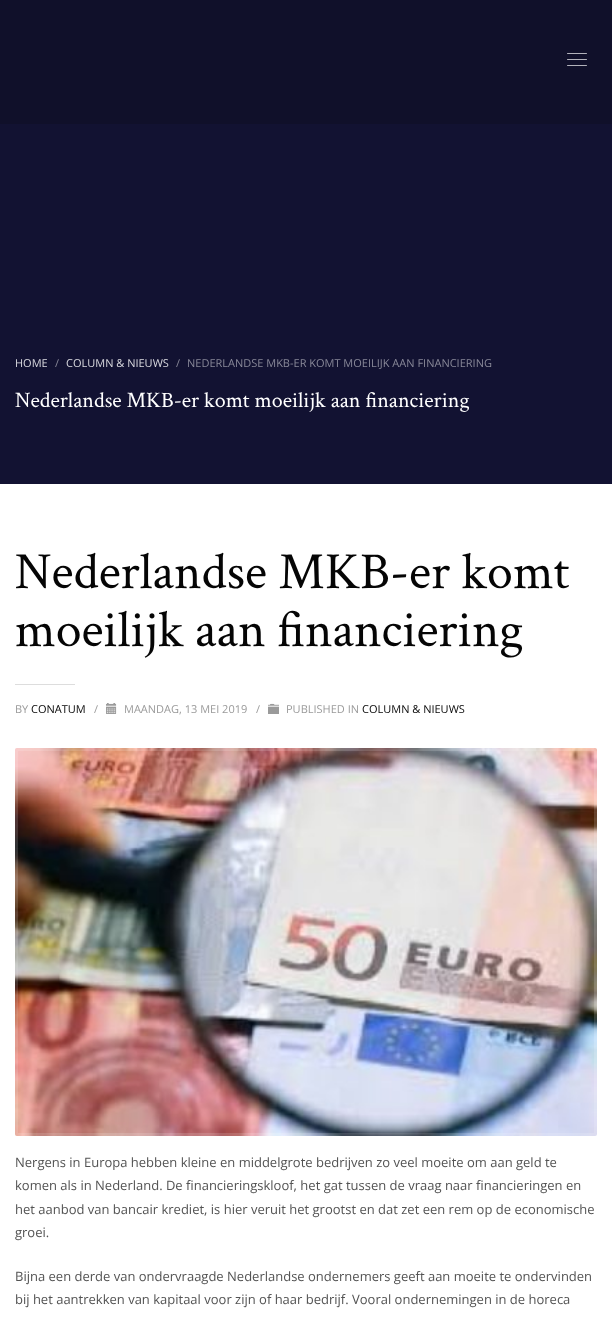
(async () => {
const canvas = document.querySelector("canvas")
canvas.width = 612
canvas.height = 1318
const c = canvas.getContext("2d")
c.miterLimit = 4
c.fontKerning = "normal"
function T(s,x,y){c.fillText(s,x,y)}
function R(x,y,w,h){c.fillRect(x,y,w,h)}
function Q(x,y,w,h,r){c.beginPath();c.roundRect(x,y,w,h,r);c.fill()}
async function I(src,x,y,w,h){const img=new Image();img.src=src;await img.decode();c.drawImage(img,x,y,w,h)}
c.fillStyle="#fff"
R(0,0,612,1318)
c.fillStyle="#10102a"
R(0,0,612,124)
c.fillStyle="#b2b2bb"
Q(567,53,20,1,.5)
Q(567,59,20,1,.5)
Q(567,65,20,1,.5)
c.fillStyle="#121232"
R(0,124,612,360)
c.font="11px Open Sans"
c.fillStyle="#dbdbe0"
T("HOME",15,367)
c.fillStyle="#898999"
T("/",55,367)
c.fillStyle="#dbdbe0"
T("COLUMN & NIEUWS",66,367)
c.fillStyle="#898999"
T("/",176,367)
T("NEDERLANDSE MKB-ER KOMT MOEILIJK AAN FINANCIERING",187,367)
c.font="22px Crimson Text"
c.fillStyle="#fff"
T("Nederlandse MKB-er komt moeilijk aan financiering",15,407)
c.font="52px Crimson Text"
c.fillStyle="#050505"
T("Nederlandse MKB-er komt",15,588)
T("moeilijk aan financiering",15,646)
c.fillStyle="#ddd"
R(15,684,60,1)
c.font="11px Open Sans"
c.fillStyle="#9a9a9a"
T("BY",15,713)
c.fillStyle="#050505"
T("CONATUM",31,713)
c.fillStyle="#9a9a9a"
T("/",94,713)
await I("1.png",106,703,11,11)
T("MAANDAG, 13 MEI 2019",124,713)
T("/",256,713)
await I("2.png",268,703,11,11)
T("PUBLISHED IN",286,713)
c.fillStyle="#050505"
T("COLUMN & NIEUWS",362,713)
await I("3.png",15,748,582,388)
c.beginPath()
c.roundRect(16.5,749.5,579,385,1.5)
c.strokeStyle="#ffffff26"
c.lineWidth=3
c.stroke()
c.font="13px Open Sans"
c.fillStyle="#535353"
T("Nergens in Europa hebben kleine en middelgrote bedrijven zo veel moeite om aan geld te",15,1167)
T("komen als in Nederland. De financieringskloof, het gat tussen de vraag naar financieringen en",15,1190)
T("het aanbod van bancair krediet, is hier veruit het grootst en dat zet een rem op de economische",15,1214)
T("groei.",15,1237)
T("Bijna een derde van ondervraagde Nederlandse ondernemers geeft aan moeite te ondervinden",15,1281)
T("bij het aantrekken van kapitaal voor zijn of haar bedrijf. Vooral ondernemingen in de horeca",15,1304)
})()
